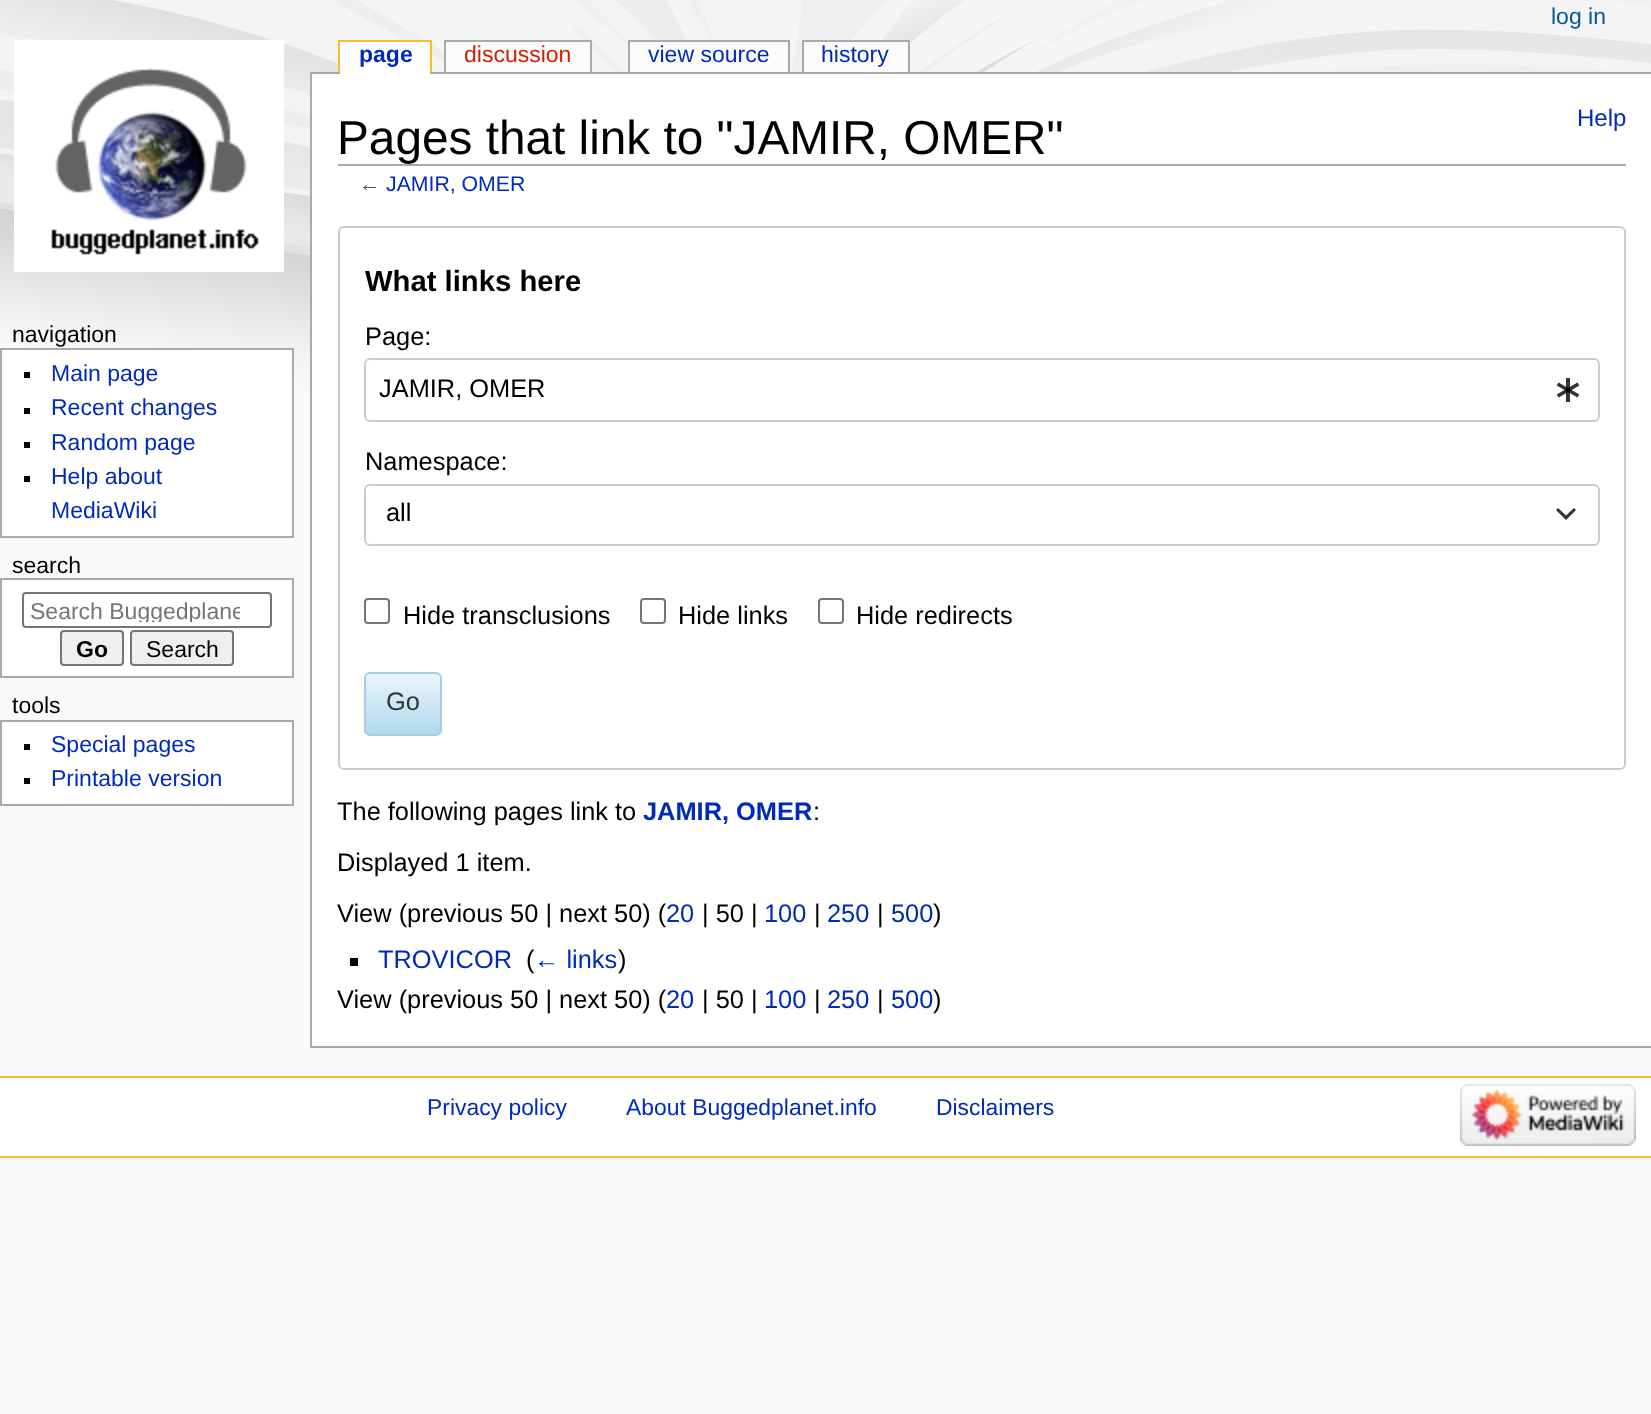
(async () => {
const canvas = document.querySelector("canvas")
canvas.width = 1651
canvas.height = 1414
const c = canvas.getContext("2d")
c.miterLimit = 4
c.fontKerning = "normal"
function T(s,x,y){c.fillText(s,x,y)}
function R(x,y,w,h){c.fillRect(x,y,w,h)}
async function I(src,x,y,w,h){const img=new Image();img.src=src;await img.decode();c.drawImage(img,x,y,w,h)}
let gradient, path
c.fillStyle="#f9f9f9"
R(0,0,1651,1414)
await I("1.png",0,0,1651,419)
c.font="23px Liberation Sans"
c.fillStyle="#005896"
T("log in",1551,24)
await I("2.png",14,40,270,232)
c.fillStyle="#aaa"
R(310,72,1341,2)
c.fillStyle="#fff"
R(340,42,90,32)
c.font="bold 23px Liberation Sans"
c.fillStyle="#002bb8"
T("page",359,62)
c.fillStyle="#fabd23"
R(338,40,94,2)
R(430,40,2,32)
R(338,40,2,32)
c.fillStyle="#fbfbfb"
R(446,42,144,30)
c.font="23px Liberation Sans"
c.fillStyle="#c20"
T("discussion",464,62)
c.fillStyle="#aaa"
R(444,40,148,2)
R(590,40,2,32)
R(444,40,2,32)
c.fillStyle="#fbfbfb"
R(630,42,158,30)
c.fillStyle="#002bb8"
T("view source",648,62)
c.fillStyle="#aaa"
R(628,40,162,2)
R(788,40,2,32)
R(628,40,2,32)
c.fillStyle="#fbfbfb"
R(804,42,104,30)
c.fillStyle="#002bb8"
T("history",821,62)
c.fillStyle="#aaa"
R(802,40,108,2)
R(908,40,2,32)
R(802,40,2,32)
c.fillStyle="#000"
T("navigation",12,342)
c.fillStyle="#fff"
c.beginPath()
c.rect(1,349,292,188)
c.fill()
c.strokeStyle="#aaa"
c.lineWidth=2
c.stroke()
c.fillStyle="#000"
R(24,372,6,6)
c.fillStyle="#002bb8"
T("Main page",51,381)
c.fillStyle="#000"
R(24,408,6,6)
c.fillStyle="#002bb8"
T("Recent changes",51,415)
c.fillStyle="#000"
R(24,442,6,6)
c.fillStyle="#002bb8"
T("Random page",51,450)
c.fillStyle="#000"
R(24,476,6,6)
c.fillStyle="#002bb8"
T("Help about",51,484)
T("MediaWiki",51,518)
c.fillStyle="#000"
T("search",12,573)
c.fillStyle="#fff"
c.beginPath()
c.rect(1,579,292,98)
c.fill()
c.stroke()
c.beginPath()
c.roundRect(23,593,248,34,3)
c.strokeStyle="#767676"
c.stroke()
c.save()
c.beginPath()
c.rect(30,598,210,24)
c.clip()
c.fillStyle="#757575"
T("Search Buggedplane",30,619)
c.restore()
c.fillStyle="#efefef"
c.beginPath()
c.roundRect(61,631,62,34,3)
c.fill()
c.stroke()
c.font="bold 23px Liberation Sans"
c.fillStyle="#000"
T("Go",76,657)
c.fillStyle="#efefef"
c.beginPath()
c.roundRect(131,631,102,34,3)
c.fill()
c.stroke()
c.font="23px Liberation Sans"
c.fillStyle="#000"
T("Search",146,657)
T("tools",12,713)
c.fillStyle="#fff"
c.beginPath()
c.rect(1,721,292,84)
c.fill()
c.strokeStyle="#aaa"
c.stroke()
c.fillStyle="#000"
R(24,744,6,6)
c.fillStyle="#002bb8"
T("Special pages",51,752)
c.fillStyle="#000"
R(24,778,6,6)
c.fillStyle="#002bb8"
T("Printable version",51,786)
c.fillStyle="#fff"
R(312,74,1339,972)
c.fillStyle="#aaa"
R(310,1046,1341,2)
R(310,72,2,976)
c.fillStyle="#a2a9b1"
R(338,164,1288,2)
c.font="47.75px Liberation Sans"
c.fillStyle="#000"
T("Pages that link to \"JAMIR, OMER\"",337,154)
c.font="24px Liberation Sans"
c.fillStyle="#002bb8"
T("Help",1577,126)
c.font="21.25px Liberation Sans"
c.fillStyle="#54595d"
T("←",359,191)
c.fillStyle="#002bb8"
T("JAMIR, OMER",386,191)
c.beginPath()
c.roundRect(339,227,1286,542,5)
c.strokeStyle="#ccc"
c.stroke()
c.font="bold 29.25px Liberation Sans"
c.fillStyle="#000"
T("What links here",365,291)
c.font="25.4px Liberation Sans"
T("Page:",365,345)
c.beginPath()
c.roundRect(365,359,1234,62,5)
c.stroke()
T("JAMIR, OMER",379,397)
await I("3.png",1556,378,24,24)
T("Namespace:",365,470)
c.beginPath()
c.roundRect(365,485,1234,60,5)
c.stroke()
T("all",386,521)
c.fillStyle="#333"
path = new Path2D("M1574 508l-8 7.5l-8-7.5l-2 2l10 10l10-10z")
c.fill(path)
c.beginPath()
c.roundRect(365,599,24,24,3)
c.strokeStyle="#767676"
c.stroke()
c.fillStyle="#000"
T("Hide transclusions",403,624)
c.beginPath()
c.roundRect(641,599,24,24,3)
c.stroke()
T("Hide links",678,624)
c.beginPath()
c.roundRect(819,599,24,24,3)
c.stroke()
T("Hide redirects",856,624)
c.save()
c.beginPath()
c.roundRect(364,672,78,64,6)
c.clip()
gradient = c.createLinearGradient(403,674,403,734)
gradient.addColorStop(0,"#eaf4fa")
gradient.addColorStop(1,"#b0d9ee")
c.fillStyle = gradient
R(364,674,78,60)
c.restore()
c.beginPath()
c.roundRect(365,673,76,62,5)
c.strokeStyle="#a6cee1"
c.stroke()
c.fillStyle="#333"
T("Go",386,710)
c.fillStyle="#000"
T("The following pages link to",337,820)
c.font="bold 25.4px Liberation Sans"
c.fillStyle="#002bb8"
T("JAMIR, OMER",643,820)
c.font="25.4px Liberation Sans"
c.fillStyle="#000"
T(":",813,820)
T("Displayed 1 item.",337,871)
T("View (previous 50 | next 50) (",337,922)
c.fillStyle="#002bb8"
T("20",666,922)
c.fillStyle="#000"
T("| 50 |",702,922)
c.fillStyle="#002bb8"
T("100",764,922)
c.fillStyle="#000"
T("|",814,922)
c.fillStyle="#002bb8"
T("250",827,922)
c.fillStyle="#000"
T("|",877,922)
c.fillStyle="#002bb8"
T("500",891,922)
c.fillStyle="#000"
T(")",933,922)
R(350,958,8,8)
c.fillStyle="#002bb8"
T("TROVICOR",378,968)
c.fillStyle="#000"
T("(",526,968)
c.fillStyle="#002bb8"
T("← links",534,968)
c.fillStyle="#000"
T(")",618,968)
T("View (previous 50 | next 50) (",337,1008)
c.fillStyle="#002bb8"
T("20",666,1008)
c.fillStyle="#000"
T("| 50 |",702,1008)
c.fillStyle="#002bb8"
T("100",764,1008)
c.fillStyle="#000"
T("|",814,1008)
c.fillStyle="#002bb8"
T("250",827,1008)
c.fillStyle="#000"
T("|",877,1008)
c.fillStyle="#002bb8"
T("500",891,1008)
c.fillStyle="#000"
T(")",933,1008)
c.fillStyle="#fff"
R(0,1078,1651,78)
c.fillStyle="#fabd23"
R(0,1076,1651,2)
R(0,1156,1651,2)
c.font="22.9px Liberation Sans"
c.fillStyle="#002bb8"
T("Privacy policy",427,1115)
T("About Buggedplanet.info",626,1115)
T("Disclaimers",936,1115)
await I("4.png",1460,1084,176,62)
})()
